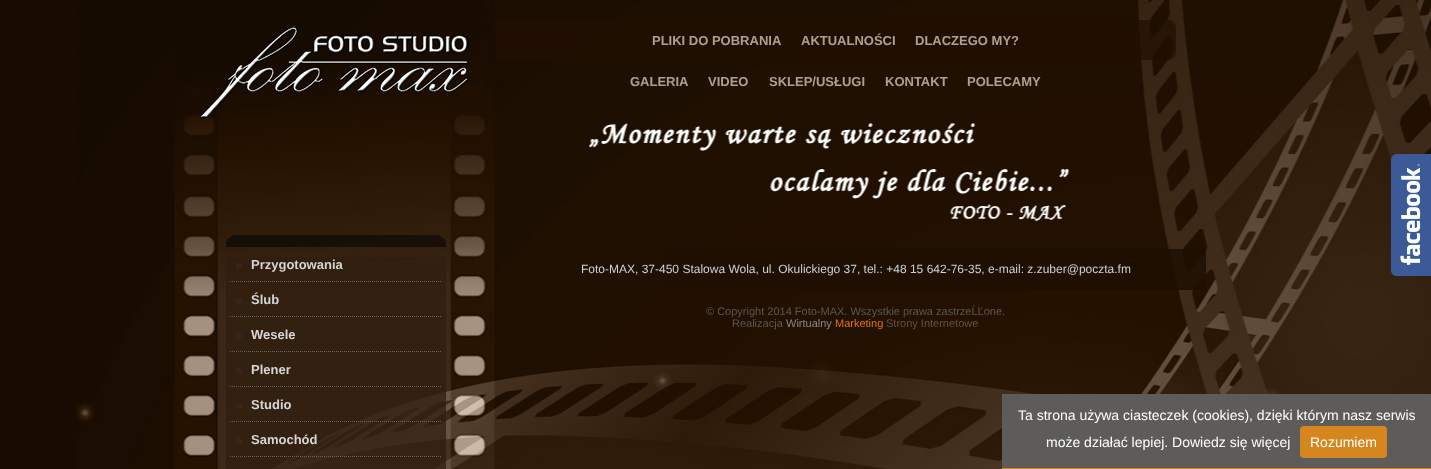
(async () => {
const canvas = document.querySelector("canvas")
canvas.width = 1431
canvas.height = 469
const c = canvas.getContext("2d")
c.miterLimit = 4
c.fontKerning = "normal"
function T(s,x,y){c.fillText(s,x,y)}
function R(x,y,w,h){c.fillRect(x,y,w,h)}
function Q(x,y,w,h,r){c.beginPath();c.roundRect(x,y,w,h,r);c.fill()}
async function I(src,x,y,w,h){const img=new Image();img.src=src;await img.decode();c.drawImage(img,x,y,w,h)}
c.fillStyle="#fff"
R(0,0,1431,469)
await I("1.png",0,0,75,469)
await I("2.png",75,0,1356,469)
await I("3.png",199,26,270,92)
await I("4.png",496,20,680,40)
c.font="bold 13px Liberation Sans"
c.fillStyle="#ada093"
T("PLIKI DO POBRANIA",652,45)
T("AKTUALNOŚCI",801,45)
T("DLACZEGO MY?",915,45)
T("GALERIA",630,86)
T("VIDEO",708,86)
T("SKLEP/USŁUGI",769,86)
T("KONTAKT",885,86)
T("POLECAMY",967,86)
await I("5.png",226,235,220,12)
c.fillStyle="#301e0ec4"
R(226,257,220,212)
await I("6.png",230,281,211,1)
await I("7.png",236,263,6,6)
c.fillStyle="#d6d6d6"
T("Przygotowania",251,269)
await I("8.png",230,316,211,1)
await I("9.png",236,298,6,6)
T("Ślub",251,304)
await I("10.png",230,351,211,1)
await I("9.png",236,333,6,6)
T("Wesele",251,339)
await I("11.png",230,386,211,1)
await I("9.png",236,368,6,6)
T("Plener",251,374)
await I("12.png",230,421,211,1)
await I("13.png",236,403,6,6)
T("Studio",251,409)
await I("14.png",230,456,211,1)
await I("13.png",236,438,6,6)
T("Samochód",251,444)
c.fillStyle="#1d0f01d9"
R(666,249,540,41)
c.font="12px Liberation Sans"
c.fillStyle="#cdd0dd"
T("Foto-MAX, 37-450 Stalowa Wola, ul. Okulickiego 37, tel.: +48 15 642-76-35, e-mail: z.zuber@poczta.fm",581,273)
c.font="11px Liberation Sans"
c.fillStyle="#5d5751"
T("© Copyright 2014 Foto-MAX. Wszystkie prawa zastrzeĹĽone.",706,315)
T("Realizacja",732,327)
c.fillStyle="#8a8a8a"
T("Wirtualny",786,327)
c.fillStyle="#e6730f"
T("Marketing",835,327)
c.fillStyle="#635141"
T("Strony Internetowe",886,327)
await I("15.png",1391,154,40,122)
c.fillStyle="#5d5c5a"
R(1002,394,429,74)
c.fillStyle="#d6861e"
R(1002,468,429,1)
c.font="14px Liberation Sans"
c.fillStyle="#fff"
T("Ta strona używa ciasteczek (cookies), dzięki którym nasz serwis",1018,420)
T("może działać lepiej. Dowiedz się więcej",1046,447)
c.fillStyle="#d6861e"
Q(1300,426,87,32,4)
c.fillStyle="#fff"
T("Rozumiem",1310,447)
})()
